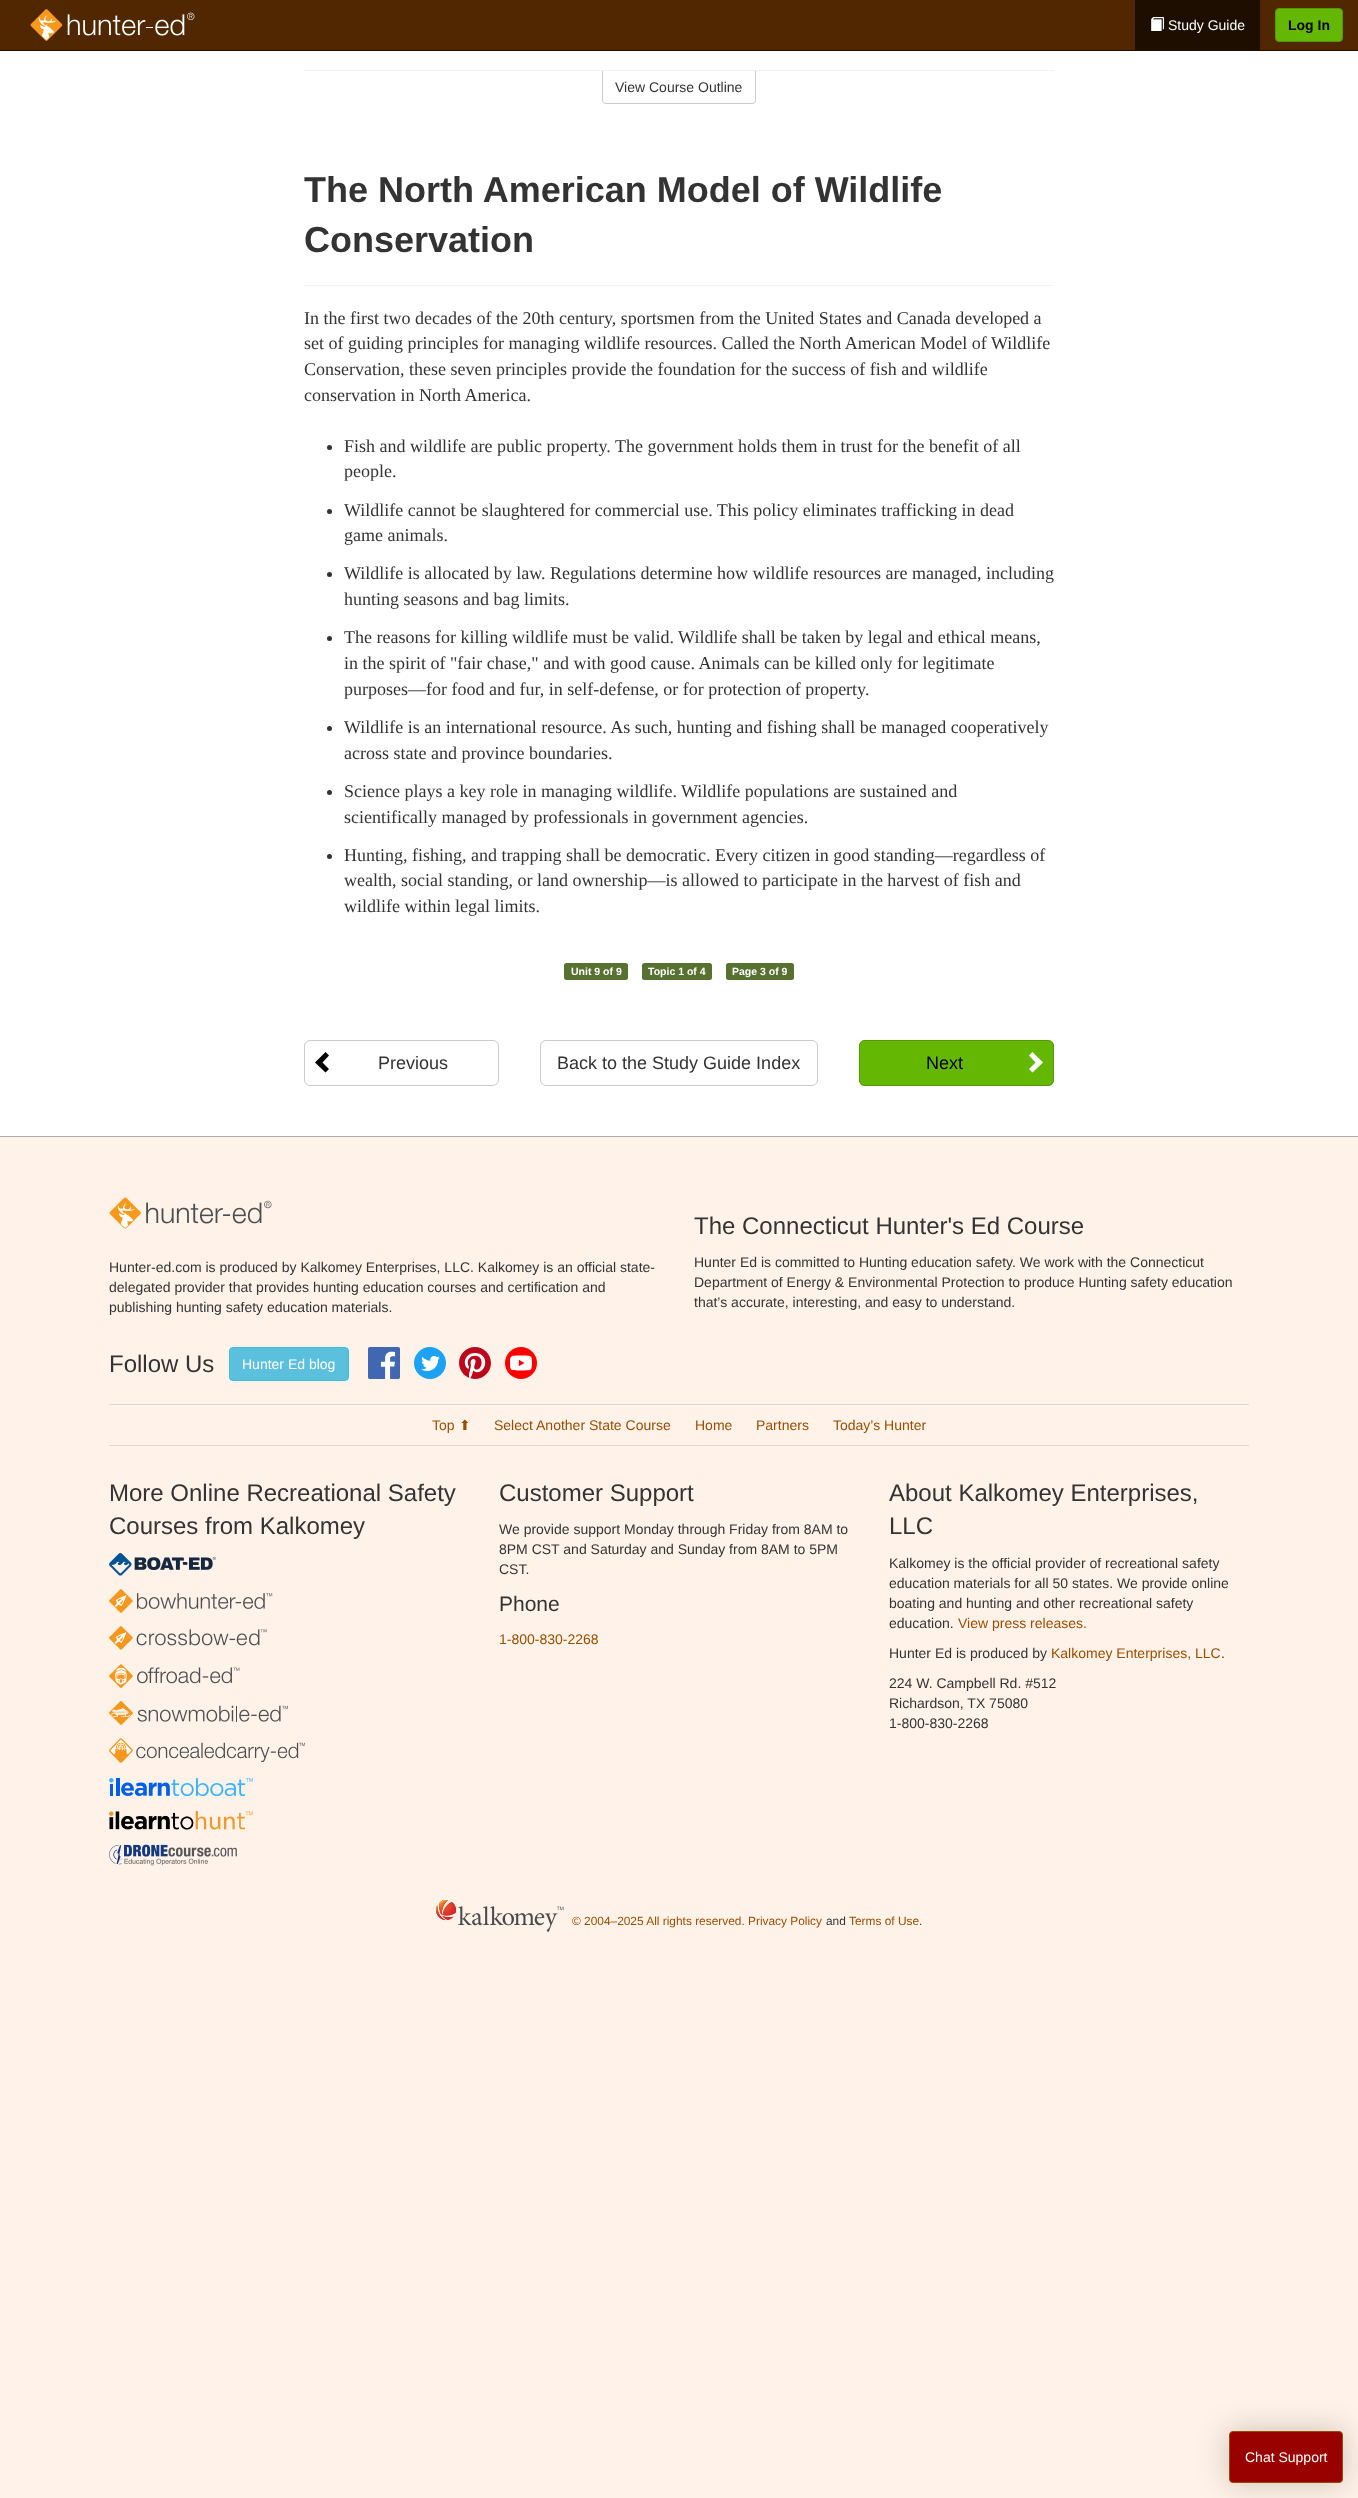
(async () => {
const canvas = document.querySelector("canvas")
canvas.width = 1358
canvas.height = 2498
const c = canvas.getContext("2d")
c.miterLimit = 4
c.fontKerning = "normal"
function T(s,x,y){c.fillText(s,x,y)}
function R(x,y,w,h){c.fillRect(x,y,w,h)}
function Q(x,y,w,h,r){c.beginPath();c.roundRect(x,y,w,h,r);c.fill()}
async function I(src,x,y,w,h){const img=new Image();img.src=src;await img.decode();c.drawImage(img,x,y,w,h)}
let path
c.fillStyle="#fff3e9"
R(0,0,1358,2498)
c.fillStyle="#502700"
R(0,0,1358,50)
c.fillStyle="#1d0e00"
R(0,50,1358,1)
await I("1.png",30,9,165,32)
R(1135,0,125,50)
await I("2.png",1151,17,13,14)
c.font="14px Liberation Sans"
c.fillStyle="#fff"
T("Study Guide",1168,30)
c.fillStyle="#64b804"
c.beginPath()
c.roundRect(1275.5,8.5,67,33,3.5)
c.fill()
c.strokeStyle="#539a03"
c.stroke()
c.font="bold 14px Liberation Sans"
c.fillStyle="#000"
T("Log In",1288,30)
c.fillStyle="#fff"
R(0,51,1358,1085)
c.fillStyle="#f2f2f2"
R(304,70,750,1)
c.fillStyle="#ccc"
path = new Path2D("M602 71h154v29c0 2-2 4-4 4h-146c-2 0-4-2-4-4zm1 0h152v29c0 2-1 3-3 3h-146c-2 0-3-1-3-3z")
c.fill(path,"evenodd")
c.font="14px Liberation Sans"
c.fillStyle="#333"
T("View Course Outline",615,92)
c.fillStyle="#f2f2f2"
R(304,285,750,1)
c.font="bold 36px Liberation Sans"
c.fillStyle="#333"
T("The North American Model of Wildlife",304,202)
T("Conservation",304,252)
c.font="18px Liberation Serif"
T("In the first two decades of the 20th century, sportsmen from the United States and Canada developed a",304,324)
T("set of guiding principles for managing wildlife resources. Called the North American Model of Wildlife",304,349)
T("Conservation, these seven principles provide the foundation for the success of fish and wildlife",304,375)
T("conservation in North America.",304,401)
c.beginPath()
c.arc(329.5,447.5,2.5,0,7)
c.fill()
T("Fish and wildlife are public property. The government holds them in trust for the benefit of all",344,452)
T("people.",344,477)
c.beginPath()
c.arc(329.5,511.5,2.5,0,7)
c.fill()
T("Wildlife cannot be slaughtered for commercial use. This policy eliminates trafficking in dead",344,516)
T("game animals.",344,541)
c.beginPath()
c.arc(329.5,574.5,2.5,0,7)
c.fill()
T("Wildlife is allocated by law. Regulations determine how wildlife resources are managed, including",344,579)
T("hunting seasons and bag limits.",344,605)
c.beginPath()
c.arc(329.5,638.5,2.5,0,7)
c.fill()
T("The reasons for killing wildlife must be valid. Wildlife shall be taken by legal and ethical means,",344,643)
T("in the spirit of \"fair chase,\" and with good cause. Animals can be killed only for legitimate",344,669)
T("purposes—for food and fur, in self-defense, or for protection of property.",344,695)
c.beginPath()
c.arc(329.5,728.5,2.5,0,7)
c.fill()
T("Wildlife is an international resource. As such, hunting and fishing shall be managed cooperatively",344,733)
T("across state and province boundaries.",344,759)
c.beginPath()
c.arc(329.5,792.5,2.5,0,7)
c.fill()
T("Science plays a key role in managing wildlife. Wildlife populations are sustained and",344,797)
T("scientifically managed by professionals in government agencies.",344,823)
c.beginPath()
c.arc(329.5,856.5,2.5,0,7)
c.fill()
T("Hunting, fishing, and trapping shall be democratic. Every citizen in good standing—regardless of",344,861)
T("wealth, social standing, or land ownership—is allowed to participate in the harvest of fish and",344,886)
T("wildlife within legal limits.",344,912)
c.fillStyle="#567130"
Q(564,963,64,17,2.5)
c.font="bold 10.5px Liberation Sans"
c.fillStyle="#fff"
T("Unit 9 of 9",571,975)
c.fillStyle="#567130"
Q(642,963,70,17,2.5)
c.fillStyle="#fff"
T("Topic 1 of 4",648,975)
c.fillStyle="#567130"
Q(726,963,68,17,2.5)
c.fillStyle="#fff"
T("Page 3 of 9",732,975)
c.fillStyle="#000"
path = new Path2D("M315 1062.5l10.5-10.5l3.5 3.5l-6.5 7l6.5 6.5l-3.5 3.5z")
c.fill(path)
c.beginPath()
c.roundRect(304.5,1040.5,194,45,5.5)
c.strokeStyle="#ccc"
c.stroke()
c.font="18px Liberation Sans"
c.fillStyle="#333"
T("Previous",378,1069)
c.beginPath()
c.roundRect(540.5,1040.5,277,45,5.5)
c.stroke()
T("Back to the Study Guide Index",557,1069)
c.fillStyle="#64b804"
Q(859,1040,195,46,6)
c.fillStyle="#fff"
path = new Path2D("M1043 1062.5l-10.5-10.5l-3.5 3.5l6.5 7l-6.5 6.5l3.5 3.5z")
c.fill(path)
c.beginPath()
c.roundRect(859.5,1040.5,194,45,5.5)
c.strokeStyle="#539a03"
c.stroke()
c.fillStyle="#000"
T("Next",926,1069)
c.fillStyle="#aaa"
R(0,1136,1358,1)
await I("3.png",109,1197,163,32)
c.font="14px Liberation Sans"
c.fillStyle="#333"
T("Hunter-ed.com is produced by Kalkomey Enterprises, LLC. Kalkomey is an official state-",109,1272)
T("delegated provider that provides hunting education courses and certification and",109,1292)
T("publishing hunting safety education materials.",109,1312)
c.font="24px Liberation Sans"
T("Follow Us",109,1372)
c.fillStyle="#5bc0de"
c.beginPath()
c.roundRect(229.5,1347.5,119,33,3.5)
c.fill()
c.strokeStyle="#46b8da"
c.stroke()
c.font="14px Liberation Sans"
c.fillStyle="#fff"
T("Hunter Ed blog",242,1369)
await I("4.png",368,1347,32,32)
await I("5.png",414,1347,32,32)
await I("6.png",459,1347,32,32)
await I("7.png",505,1347,32,32)
c.font="24px Liberation Sans"
c.fillStyle="#333"
T("The Connecticut Hunter's Ed Course",694,1234)
c.font="14px Liberation Sans"
T("Hunter Ed is committed to Hunting education safety. We work with the Connecticut",694,1267)
T("Department of Energy & Environmental Protection to produce Hunting safety education",694,1287)
T("that’s accurate, interesting, and easy to understand.",694,1307)
c.fillStyle="#d9d9d9"
R(109,1404,1140,1)
R(109,1445,1140,1)
c.fillStyle="#9c4c00"
T("Top",432,1430)
c.font="14px DejaVu Sans"
T("⬆",459,1430)
c.font="14px Liberation Sans"
T("Select Another State Course",494,1430)
T("Home",695,1430)
T("Partners",756,1430)
T("Today’s Hunter",833,1430)
c.font="24px Liberation Sans"
c.fillStyle="#333"
T("More Online Recreational Safety",109,1501)
T("Courses from Kalkomey",109,1534)
await I("8.png",109,1553,107,23)
await I("9.png",109,1589,164,24)
await I("10.png",109,1626,158,24)
await I("11.png",109,1664,131,24)
await I("12.png",109,1701,179,24)
await I("13.png",109,1738,196,25)
await I("14.png",109,1778,144,18)
await I("15.png",109,1811,144,19)
await I("16.png",109,1844,128,22)
T("Customer Support",499,1501)
c.font="14px Liberation Sans"
T("We provide support Monday through Friday from 8AM to",499,1534)
T("8PM CST and Saturday and Sunday from 8AM to 5PM",499,1554)
T("CST.",499,1574)
c.font="21px Liberation Sans"
T("Phone",499,1611)
c.font="14px Liberation Sans"
c.fillStyle="#9c4c00"
T("1-800-830-2268",499,1644)
c.font="24px Liberation Sans"
c.fillStyle="#333"
T("About Kalkomey Enterprises,",889,1501)
T("LLC",889,1534)
c.font="14px Liberation Sans"
T("Kalkomey is the official provider of recreational safety",889,1568)
T("education materials for all 50 states. We provide online",889,1588)
T("boating and hunting and other recreational safety",889,1608)
T("education.",889,1628)
c.fillStyle="#9c4c00"
T("View press releases.",958,1628)
c.fillStyle="#333"
T("Hunter Ed is produced by",889,1658)
c.fillStyle="#9c4c00"
T("Kalkomey Enterprises, LLC",1051,1658)
c.fillStyle="#333"
T(".",1221,1658)
T("224 W. Campbell Rd. #512",889,1688)
T("Richardson, TX 75080",889,1708)
T("1-800-830-2268",889,1728)
await I("17.png",436,1900,128,32)
c.font="11.9px Liberation Sans"
c.fillStyle="#9c4c00"
T("© 2004–2025 All rights reserved. Privacy Policy",572,1925)
c.fillStyle="#333"
T("and",826,1925)
c.fillStyle="#9c4c00"
T("Terms of Use",849,1925)
c.fillStyle="#333"
T(".",919,1925)
c.fillStyle="#00000033"
c.filter="blur(15px)"
c.beginPath()
c.roundRect(1228,2430,116,54,5)
c.fill()
c.filter="none"
c.fillStyle="#900"
c.beginPath()
c.roundRect(1229.5,2431.5,113,51,3.5)
c.fill()
c.strokeStyle="#964b00"
c.stroke()
c.font="14px Liberation Sans"
c.fillStyle="#fff"
T("Chat Support",1245,2462)
})()
